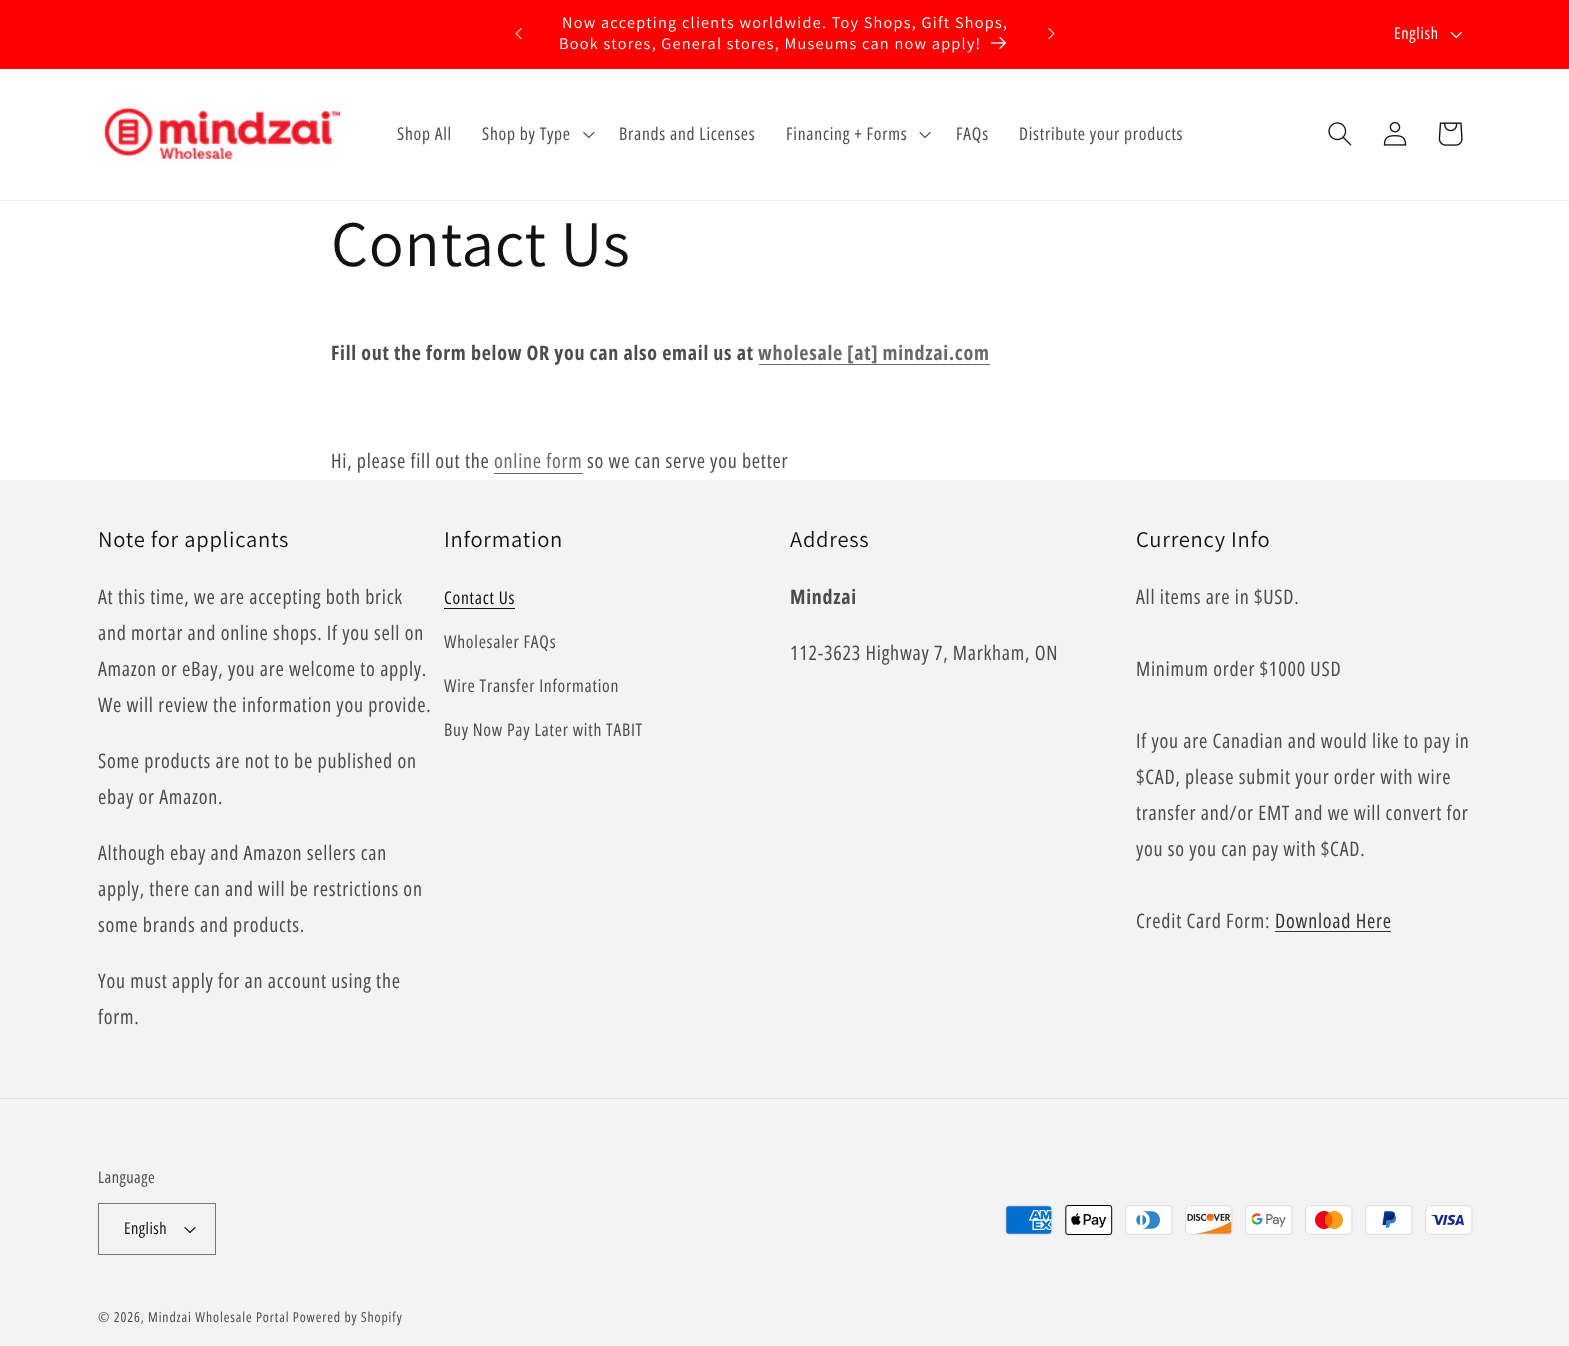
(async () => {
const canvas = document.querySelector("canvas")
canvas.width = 1569
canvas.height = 1346
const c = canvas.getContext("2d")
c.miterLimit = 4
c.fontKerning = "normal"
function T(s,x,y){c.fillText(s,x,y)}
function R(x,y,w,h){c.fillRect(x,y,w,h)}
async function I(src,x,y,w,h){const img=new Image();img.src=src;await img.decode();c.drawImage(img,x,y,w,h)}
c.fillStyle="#fff"
R(0,0,1569,1346)
c.fillStyle="#f00"
R(0,0,1569,68)
c.fillStyle="#ff1414"
R(0,68,1569,1)
await I("1.png",515,28,7,12)
c.letterSpacing="1.25px"
c.font="16.25px Assistant"
c.fillStyle="#fff"
T("Now accepting clients worldwide. Toy Shops, Gift Shops,",562,28)
T("Book stores, General stores, Museums can now apply!",559,49)
await I("2.png",991,37,15,12)
await I("3.png",1048,28,7,12)
c.letterSpacing="0.75px"
c.font="16.25px Open Sans Condensed"
T("English",1394,39)
await I("4.png",1450,31,12,8)
c.fillStyle="#ececec"
R(0,200,1569,1)
await I("5.png",97,102,251,61)
c.font="17.5px Open Sans Condensed"
c.fillStyle="#4d4d4d"
T("Shop All",397,140)
T("Shop by Type",482,140)
await I("6.png",583,131,12,8)
T("Brands and Licenses",619,140)
T("Financing + Forms",786,140)
await I("7.png",919,132,12,6)
T("FAQs",956,140)
T("Distribute your products",1019,140)
await I("8.png",1328,122,24,24)
await I("9.png",1383,121,24,25)
await I("10.png",1438,122,25,24)
c.font="65px Assistant"
c.fillStyle="#121212"
T("Contact Us",331,266)
c.font="bold 20px Open Sans Condensed"
c.fillStyle="#4d4d4d"
T("Fill out the form below OR you can also email us at",331,360)
c.fillStyle="#686868"
T("wholesale [at] mindzai.com",758,360)
R(759,364,231,1)
c.font="20px Open Sans Condensed"
c.fillStyle="#4d4d4d"
T("Hi, please fill out the",331,468)
c.fillStyle="#686868"
T("online form",494,468)
R(494,473,89,1)
c.fillStyle="#4d4d4d"
T("so we can serve you better",587,468)
c.fillStyle="#f3f3f3"
R(0,480,1569,866)
c.font="22.5px Assistant"
c.fillStyle="#121212"
T("Note for applicants",98,547)
c.font="20px Open Sans Condensed"
c.fillStyle="#4d4d4d"
T("At this time, we are accepting both brick",98,604)
T("and mortar and online shops. If you sell on",98,640)
T("Amazon or eBay, you are welcome to apply.",98,676)
T("We will review the information you provide.",98,712)
T("Some products are not to be published on",98,768)
T("ebay or Amazon.",98,804)
T("Although ebay and Amazon sellers can",98,860)
T("apply, there can and will be restrictions on",98,896)
T("some brands and products.",98,932)
T("You must apply for an account using the",98,988)
T("form.",98,1024)
c.font="22.5px Assistant"
c.fillStyle="#121212"
T("Information",444,547)
c.font="17.5px Open Sans Condensed"
T("Contact Us",444,604)
R(444,608,71,1)
c.fillStyle="#4d4d4d"
T("Wholesaler FAQs",444,648)
T("Wire Transfer Information",444,692)
T("Buy Now Pay Later with TABIT",444,736)
c.font="22.5px Assistant"
c.fillStyle="#121212"
T("Address",790,547)
c.font="bold 20px Open Sans Condensed"
c.fillStyle="#4d4d4d"
T("Mindzai",790,604)
c.font="20px Open Sans Condensed"
T("112-3623 Highway 7, Markham, ON",790,660)
c.font="22.5px Assistant"
c.fillStyle="#121212"
T("Currency Info",1136,547)
c.font="20px Open Sans Condensed"
c.fillStyle="#4d4d4d"
T("All items are in $USD.",1136,604)
T("Minimum order $1000 USD",1136,676)
T("If you are Canadian and would like to pay in",1136,748)
T("$CAD, please submit your order with wire",1136,784)
T("transfer and/or EMT and we will convert for",1136,820)
T("you so you can pay with $CAD.",1136,856)
T("Credit Card Form:",1136,928)
c.fillStyle="#343434"
T("Download Here",1275,928)
R(1275,931,116,1)
c.fillStyle="#e1e1e1"
R(0,1098,1569,1)
c.letterSpacing="0.5px"
c.font="16.25px Open Sans Condensed"
c.fillStyle="#4d4d4d"
T("Language",98,1183)
await I("11.png",184,1227,12,6)
c.strokeStyle="#777"
c.strokeRect(98.5,1203.5,117,51)
c.fillStyle="#121212"
T("English",124,1234)
await I("12.png",1005,1205,48,30)
await I("13.png",1065,1205,48,30)
await I("14.png",1125,1205,48,30)
await I("15.png",1185,1205,48,30)
await I("16.png",1245,1205,48,30)
await I("17.png",1305,1205,48,30)
await I("18.png",1365,1205,48,30)
await I("19.png",1425,1205,48,30)
c.letterSpacing="0.88px"
c.font="13.75px Open Sans Condensed"
c.fillStyle="#4d4d4d"
T("© 2026, Mindzai Wholesale Portal Powered by Shopify",98,1322)
})()
